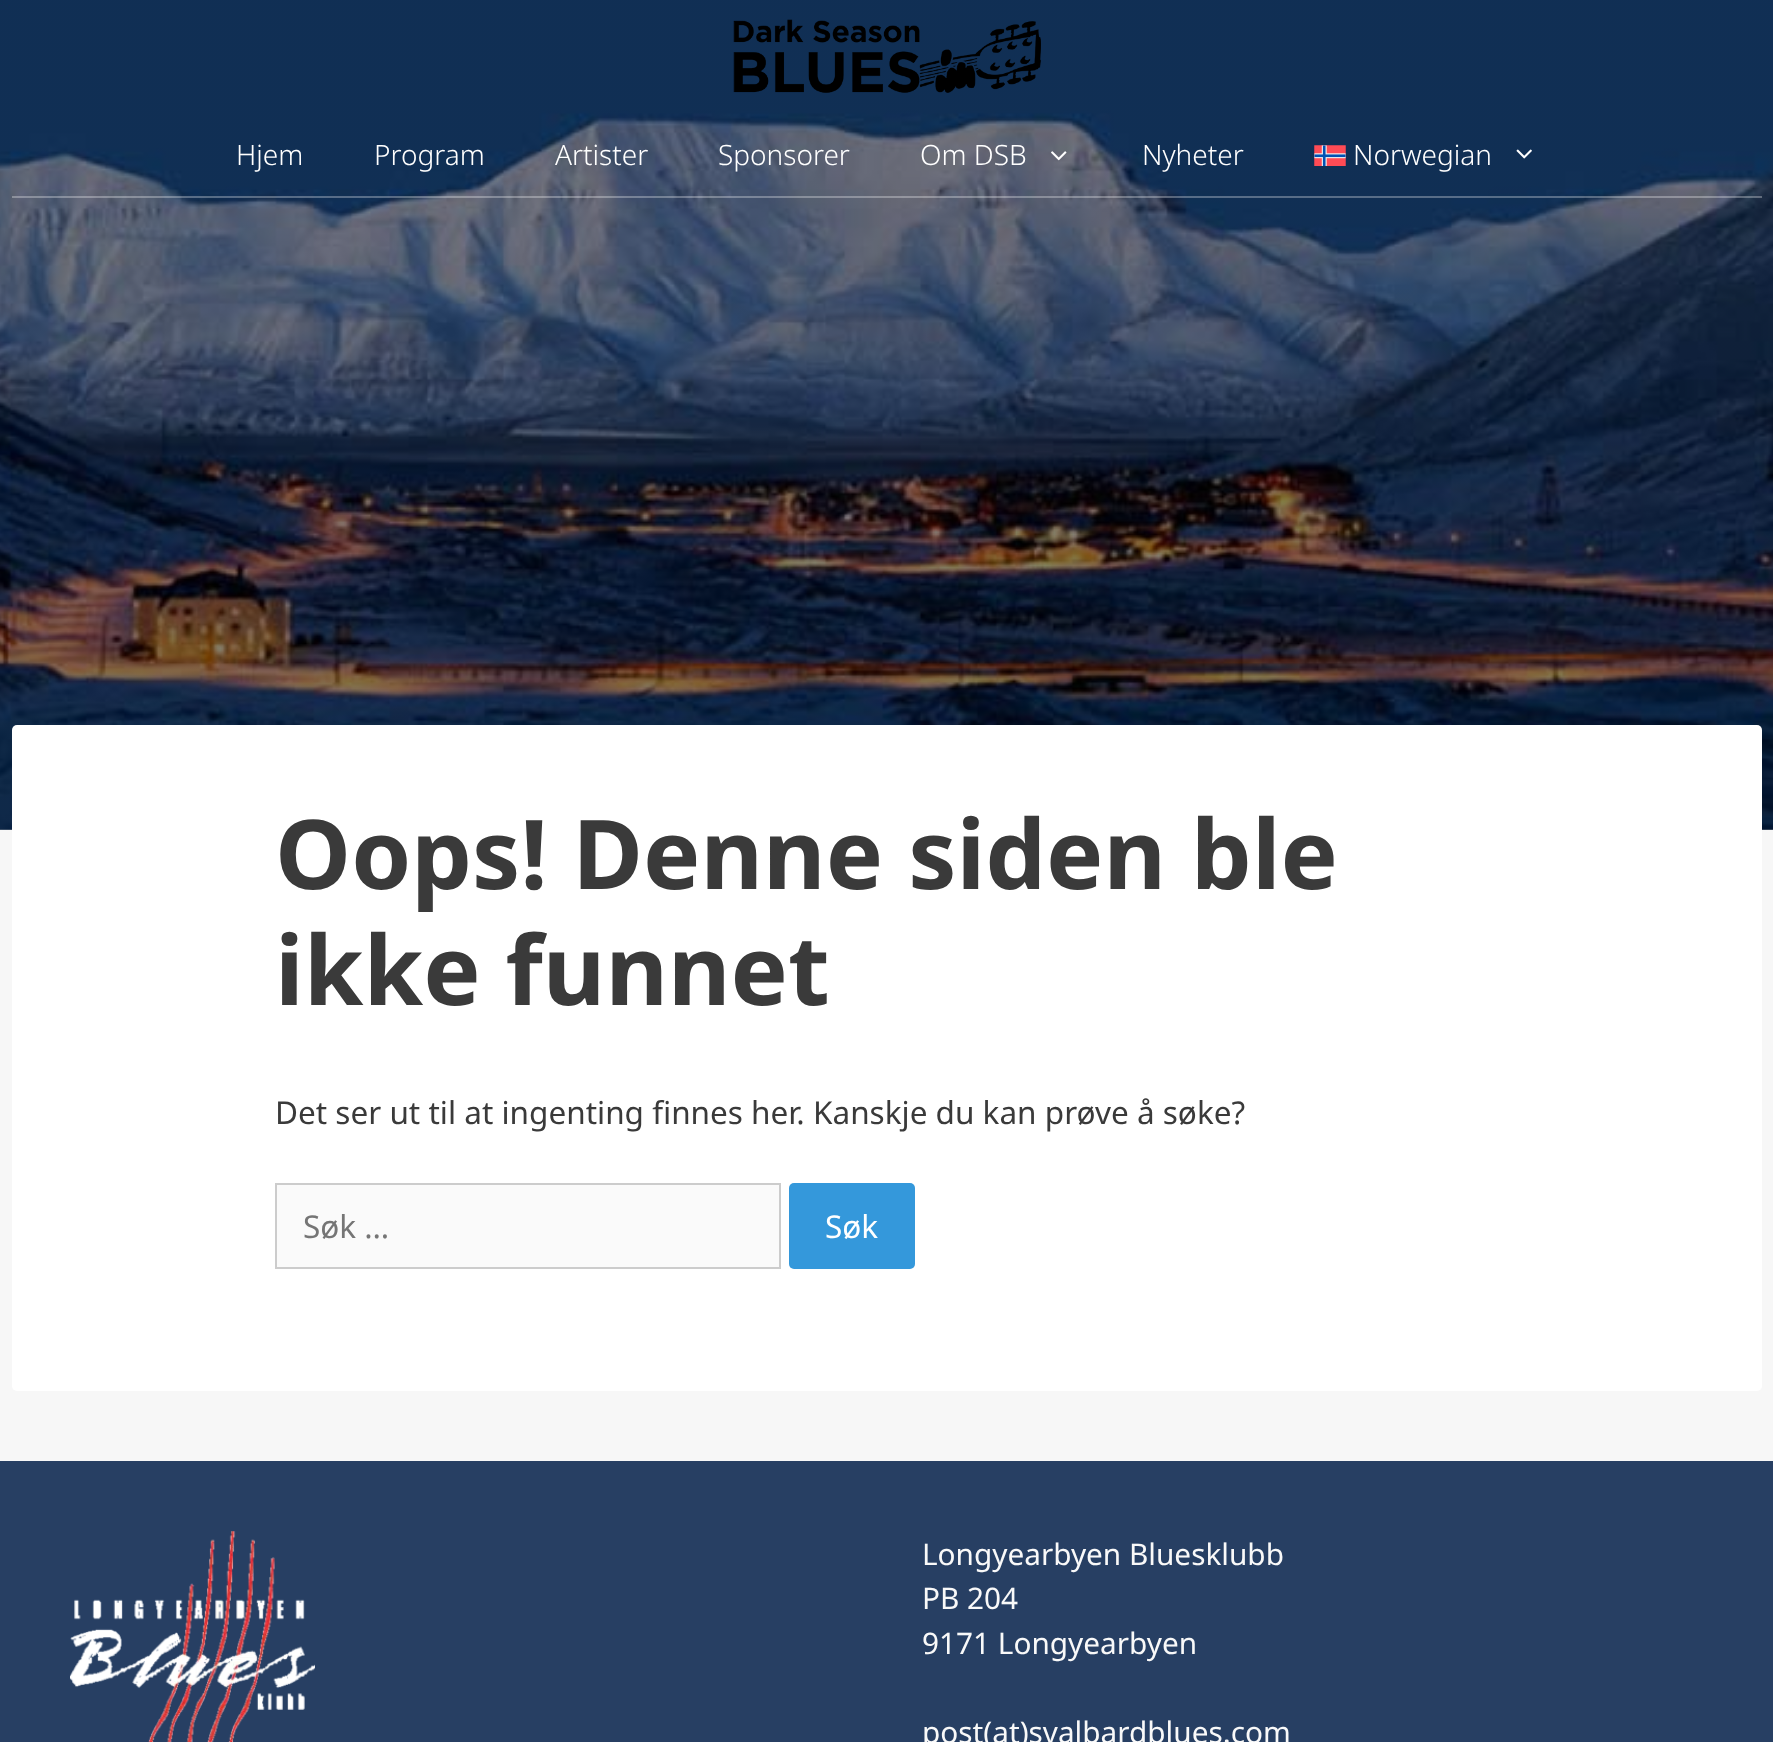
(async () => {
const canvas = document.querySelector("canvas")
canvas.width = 1773
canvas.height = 1742
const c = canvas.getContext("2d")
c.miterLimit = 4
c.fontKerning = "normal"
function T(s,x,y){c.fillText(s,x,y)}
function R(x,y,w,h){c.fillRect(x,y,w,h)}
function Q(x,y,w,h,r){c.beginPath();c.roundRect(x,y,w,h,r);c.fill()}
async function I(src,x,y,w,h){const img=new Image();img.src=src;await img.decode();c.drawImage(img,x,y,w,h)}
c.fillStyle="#f7f7f7"
R(0,0,1773,1742)
c.fillStyle="#7e7e7e"
R(0,829,1773,1)
await I("1.png",0,0,1773,830)
await I("2.png",733,19,308,74)
c.fillStyle="#ffffff4d"
R(12,196,1750,2)
c.font="300 28px Noto Sans"
c.fillStyle="#fff"
T("Hjem",236,165)
T("Program",374,165)
T("Artister",555,165)
T("Sponsorer",718,165)
T("Om DSB",920,165)
await I("3.png",1051,151,16,10)
T("Nyheter",1142,165)
await I("4.png",1314,145,32,21)
T("Norwegian",1353,165)
await I("5.png",1516,149,16,10)
Q(12,725,1750,666,5)
c.font="bold 96.25px Noto Sans"
c.fillStyle="#3a3a3a"
T("Oops! Denne siden ble",275,889)
T("ikke funnet",275,1005)
c.font="31.5px Noto Sans"
T("Det ser ut til at ingenting finnes her. Kanskje du kan prøve å søke?",275,1124)
c.fillStyle="#fafafa"
c.beginPath()
c.rect(276,1184,504,84)
c.fill()
c.strokeStyle="#ccc"
c.lineWidth=2
c.stroke()
c.fillStyle="#757575"
T("Søk …",303,1238)
c.fillStyle="#3498db"
Q(789,1183,126,86,5)
c.fillStyle="#fff"
T("Søk",825,1238)
c.fillStyle="#273f63"
R(0,1461,1773,281)
await I("6.png",70,1531,245,211)
c.font="29.75px Noto Sans"
c.fillStyle="#f9f9f9"
T("Longyearbyen Bluesklubb",922,1565)
T("PB 204",922,1609)
T("9171 Longyearbyen",922,1654)
T("post(at)svalbardblues.com",922,1743)
})()
